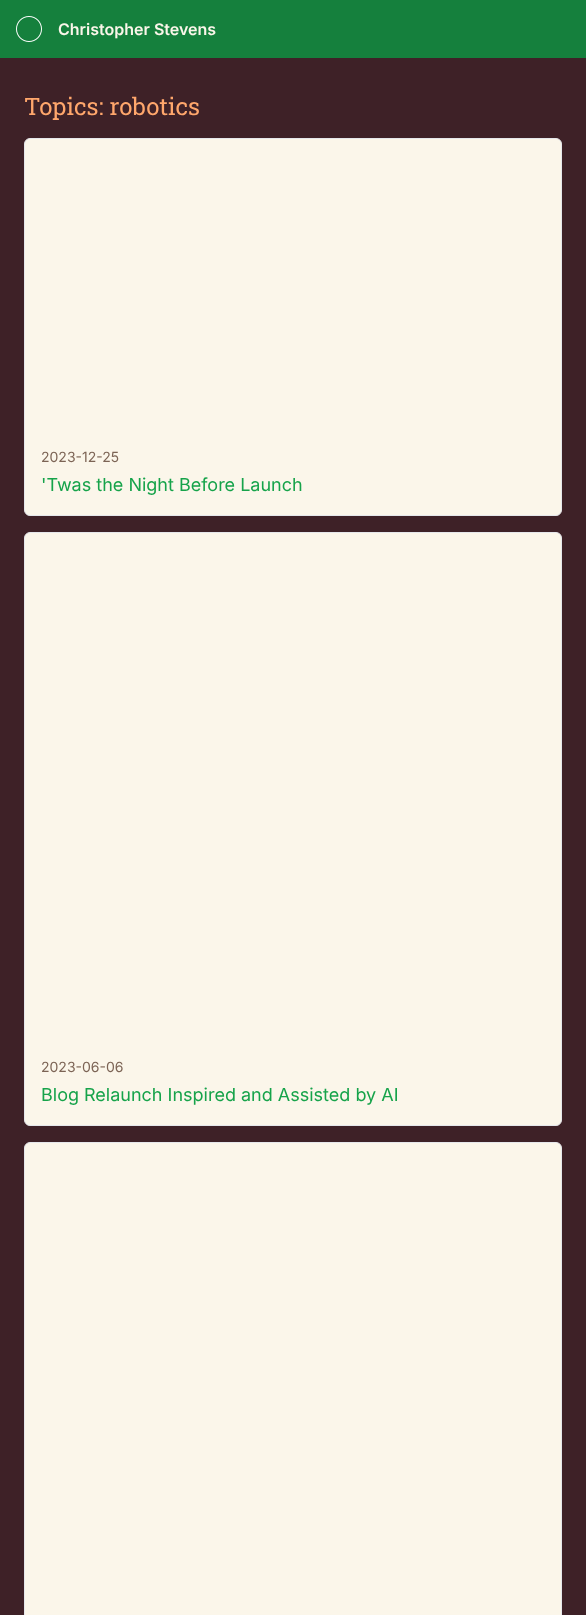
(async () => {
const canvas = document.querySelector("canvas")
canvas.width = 586
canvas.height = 1615
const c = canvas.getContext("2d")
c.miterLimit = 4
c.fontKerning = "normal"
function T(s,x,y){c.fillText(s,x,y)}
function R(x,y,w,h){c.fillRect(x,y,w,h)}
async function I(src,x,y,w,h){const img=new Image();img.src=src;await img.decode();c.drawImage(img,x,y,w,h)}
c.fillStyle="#3e2127"
R(0,0,586,1615)
c.fillStyle="#15803d"
R(0,0,586,58)
await I("1.png",16,16,26,26)
c.font="600 16px Inter"
c.fillStyle="#fbf6ea"
T("Christopher Stevens",58,35)
c.font="24px Roboto Slab"
c.fillStyle="#ffa76c"
T("Topics: robotics",24,115)
c.fillStyle="#fbf6ea"
c.beginPath()
c.roundRect(24.5,138.5,537,377,5.5)
c.fill()
c.strokeStyle="#e5e7eb"
c.stroke()
c.font="14px Inter"
c.fillStyle="#7c6455"
T("2023-12-25",41,462)
c.font="18px Inter"
c.fillStyle="#16a34a"
T("'Twas the Night Before Launch",41,491)
c.fillStyle="#fbf6ea"
c.beginPath()
c.roundRect(24.5,532.5,537,593,5.5)
c.fill()
c.stroke()
c.font="14px Inter"
c.fillStyle="#7c6455"
T("2023-06-06",41,1072)
c.font="18px Inter"
c.fillStyle="#16a34a"
T("Blog Relaunch Inspired and Assisted by AI",41,1101)
c.fillStyle="#fbf6ea"
c.beginPath()
c.roundRect(24.5,1142.5,537,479,5.5)
c.fill()
c.stroke()
})()
